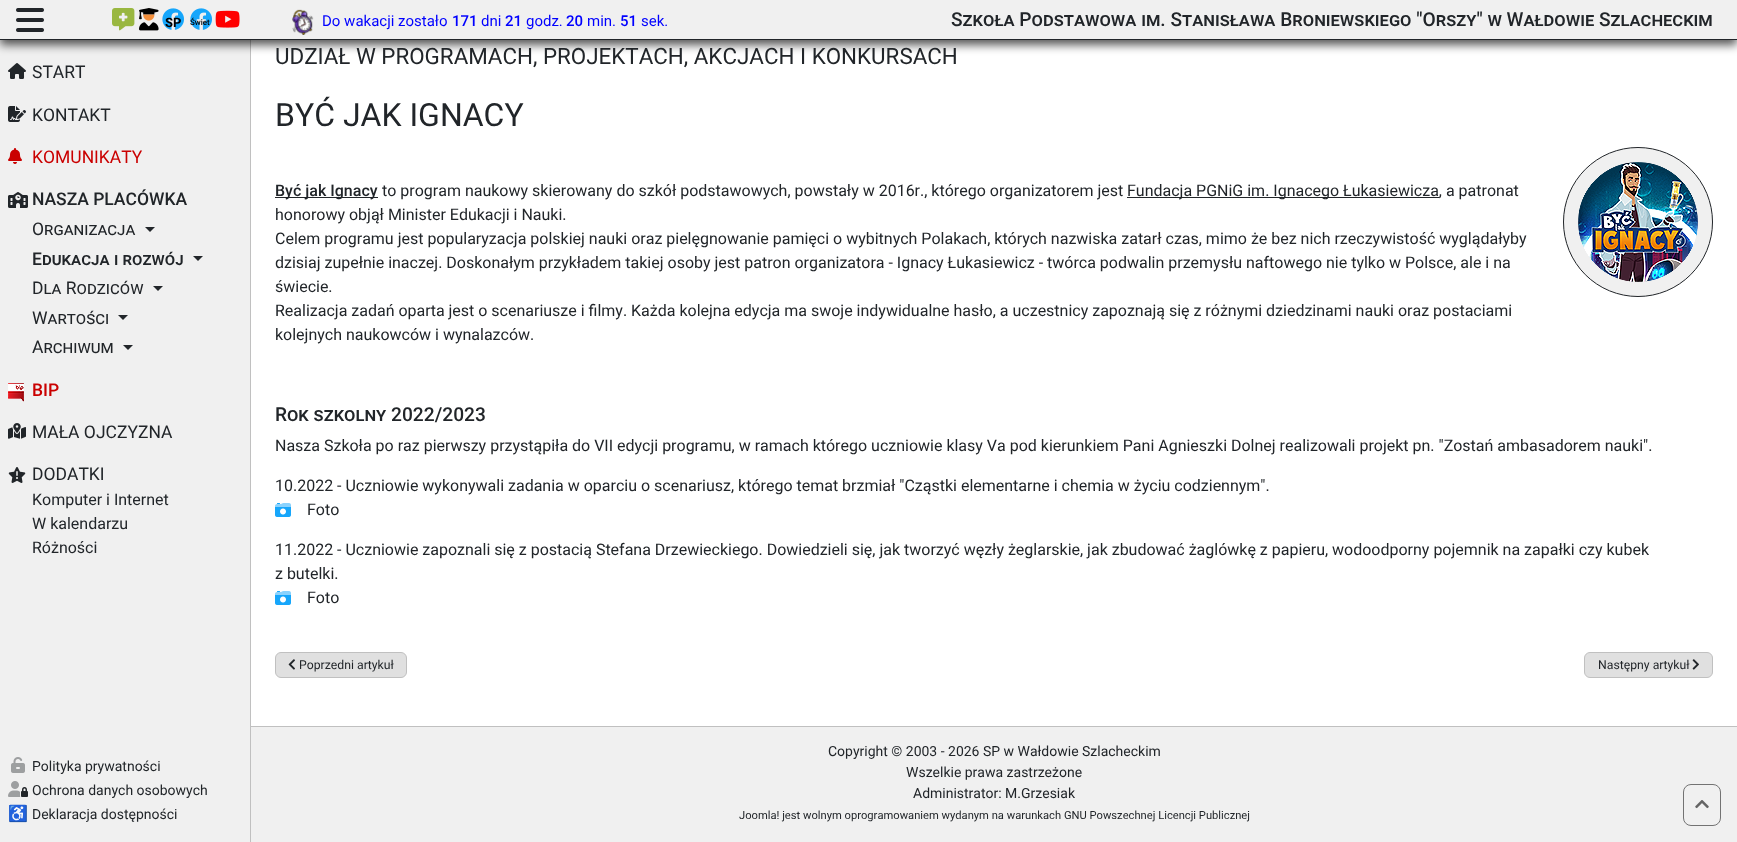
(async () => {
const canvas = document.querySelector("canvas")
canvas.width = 1737
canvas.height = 842
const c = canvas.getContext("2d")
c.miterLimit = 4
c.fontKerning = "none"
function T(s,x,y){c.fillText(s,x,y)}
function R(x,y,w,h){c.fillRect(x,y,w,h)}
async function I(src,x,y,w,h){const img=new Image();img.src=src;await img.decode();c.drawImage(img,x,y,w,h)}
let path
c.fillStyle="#fff"
R(0,0,1737,842)
c.fillStyle="#f0f0f0"
R(0,40,250,802)
c.fillStyle="#c0c0c0"
R(250,40,1,802)
c.fillStyle="#000000a8"
c.filter="blur(5px)"
c.beginPath()
c.rect(0,5,1737,40)
c.fill()
c.filter="none"
c.fillStyle="#f0f0f0"
R(0,0,1737,39)
c.fillStyle="#212529"
R(0,39,1737,1)
await I("1.png",16,8,28,24)
await I("2.png",112,8,23,23)
await I("3.png",139,8,20,23)
await I("4.png",162,8,22,22)
c.font="bold 13px Roboto"
c.fillStyle="#000"
T("SP",165,27)
await I("4.png",190,8,22,22)
c.font="500 8px Roboto"
T("Świet",190,25)
await I("5.png",215,10,25,18)
await I("6.png",292,9,22,26)
c.font="15px Roboto"
c.fillStyle="#00f"
T("Do wakacji zostało",322,26)
c.font="500 15px Roboto"
T("171",452,26)
c.font="15px Roboto"
T("dni",481,26)
c.font="500 15px Roboto"
T("21",505,26)
c.font="15px Roboto"
T("godz.",526,26)
c.font="500 15px Roboto"
T("20",566,26)
c.font="15px Roboto"
T("min.",587,26)
c.font="500 15px Roboto"
T("51",620,26)
c.font="15px Roboto"
T("sek.",641,26)
c.font="500 19.2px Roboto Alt"
c.fillStyle="#212529"
T("Szkoła Podstawowa im. Stanisława Broniewskiego \"Orszy\" w Wałdowie Szlacheckim",951,26)
await I("7.png",8,63,18,16)
c.font="17.5px Roboto"
T("START",32,78)
await I("8.png",8,106,18,16)
T("KONTAKT",32,121)
await I("9.png",8,148,14,16)
c.fillStyle="#ca0000"
T("KOMUNIKATY",32,163)
await I("10.png",8,192,20,16)
c.font="500 17.5px Roboto"
c.fillStyle="#212529"
T("NASZA PLACÓWKA",32,205)
c.font="17.5px Roboto Alt"
T("Organizacja",32,235)
c.fillStyle="#22262a"
path = new Path2D("M145 227h10l-5 5z")
c.fill(path)
c.font="500 17.5px Roboto Alt"
c.fillStyle="#212529"
T("Edukacja i rozwój",32,265)
c.fillStyle="#22262a"
path = new Path2D("M193 256h10l-5 5z")
c.fill(path)
c.font="17.5px Roboto Alt"
c.fillStyle="#212529"
T("Dla Rodziców",32,294)
c.fillStyle="#22262a"
path = new Path2D("M153 286h10l-5 5z")
c.fill(path)
c.fillStyle="#212529"
T("Wartości",32,324)
c.fillStyle="#22262a"
path = new Path2D("M118 315h10l-5 5z")
c.fill(path)
c.fillStyle="#212529"
T("Archiwum",32,353)
c.fillStyle="#22262a"
path = new Path2D("M123 345h10l-5 5z")
c.fill(path)
await I("11.png",8,383,16,19)
c.font="500 17.5px Roboto"
c.fillStyle="#ca0000"
T("BIP",32,396)
await I("12.png",8,423,18,16)
c.font="17.5px Roboto"
c.fillStyle="#212529"
T("MAŁA OJCZYZNA",32,438)
await I("13.png",8,467,18,16)
T("DODATKI",32,480)
c.font="16px Roboto"
T("Komputer i Internet",32,505)
T("W kalendarzu",32,529)
T("Różności",32,553)
await I("14.png",11,757,14,16)
c.font="14px Roboto"
T("Polityka prywatności",32,771)
await I("15.png",8,781,20,16)
T("Ochrona danych osobowych",32,795)
c.font="16px Noto Color Emoji"
T("♿",8,819)
c.font="14px Roboto"
T("Deklaracja dostępności",32,819)
c.font="22.4px Roboto"
T("UDZIAŁ W PROGRAMACH, PROJEKTACH, AKCJACH I KONKURSACH",275,64)
c.font="32px Roboto"
T("BYĆ JAK IGNACY",275,126)
c.fillStyle="#f0f0f0"
c.beginPath()
c.arc(1638,222,74.5,0,7)
c.fill()
c.strokeStyle="#212529"
c.stroke()
await I("16.png",1578,162,120,120)
c.fillStyle="#212529"
R(275,197,103,1)
c.font="500 16px Roboto"
T("Być jak Ignacy",275,196)
c.font="16px Roboto"
T("to program naukowy skierowany do szkół podstawowych, powstały w 2016r., którego organizatorem jest",382,196)
R(1127,197,312,1)
T("Fundacja PGNiG im. Ignacego Łukasiewicza, a patronat",1127,196)
T("honorowy objął Minister Edukacji i Nauki.",275,220)
T("Celem programu jest popularyzacja polskiej nauki oraz pielęgnowanie pamięci o wybitnych Polakach, których nazwiska zatarł czas, mimo że bez nich rzeczywistość wyglądałyby",275,244)
T("dzisiaj zupełnie inaczej. Doskonałym przykładem takiej osoby jest patron organizatora - Ignacy Łukasiewicz - twórca podwalin przemysłu naftowego nie tylko w Polsce, ale i na",275,268)
T("świecie.",275,292)
T("Realizacja zadań oparta jest o scenariusze i filmy. Każda kolejna edycja ma swoje indywidualne hasło, a uczestnicy zapoznają się z różnymi dziedzinami nauki oraz postaciami",275,316)
T("kolejnych naukowców i wynalazców.",275,340)
c.font="500 19.2px Roboto Alt"
T("Rok szkolny 2022/2023",275,421)
c.font="16px Roboto"
T("Nasza Szkoła po raz pierwszy przystąpiła do VII edycji programu, w ramach którego uczniowie klasy Va pod kierunkiem Pani Agnieszki Dolnej realizowali projekt pn. \"Zostań ambasadorem nauki\".",275,451)
T("10.2022 - Uczniowie wykonywali zadania w oparciu o scenariusz, którego temat brzmiał \"Cząstki elementarne i chemia w życiu codziennym\".",275,491)
await I("17.png",275,503,16,14)
await I("18.png",275,503,16,4)
T("Foto",307,515)
T("11.2022 - Uczniowie zapoznali się z postacią Stefana Drzewieckiego. Dowiedzieli się, jak tworzyć węzły żeglarskie, jak zbudować żaglówkę z papieru, wodoodporny pojemnik na zapałki czy kubek",275,555)
T("z butelki.",275,579)
await I("17.png",275,591,16,14)
await I("18.png",275,591,16,4)
T("Foto",307,603)
c.fillStyle="#e0e0e0"
c.beginPath()
c.roundRect(275.5,652.5,131,25,5.5)
c.fill()
c.strokeStyle="#c0c0c0"
c.stroke()
await I("19.png",288,659,7,11)
c.font="12.25px Roboto"
c.fillStyle="#212529"
T("Poprzedni artykuł",299,669)
c.fillStyle="#e0e0e0"
c.beginPath()
c.roundRect(1584.5,652.5,128,25,5.5)
c.fill()
c.stroke()
c.fillStyle="#212529"
T("Następny artykuł",1598,669)
await I("20.png",1692,659,7,11)
c.fillStyle="#f0f0f0"
R(251,727,1486,115)
c.fillStyle="#c0c0c0"
R(251,726,1486,1)
c.font="14px Roboto"
c.fillStyle="#212529"
T("Copyright © 2003 - 2026 SP w Wałdowie Szlacheckim",828,756)
T("Wszelkie prawa zastrzeżone",906,777)
T("Administrator: M.Grzesiak",913,798)
c.font="11.2px Roboto"
T("Joomla! jest wolnym oprogramowaniem wydanym na warunkach GNU Powszechnej Licencji Publicznej",739,819)
c.beginPath()
c.roundRect(1683.5,784.5,37,41,7.5)
c.strokeStyle="#737373"
c.stroke()
await I("21.png",1695,800,14,9)
})()
